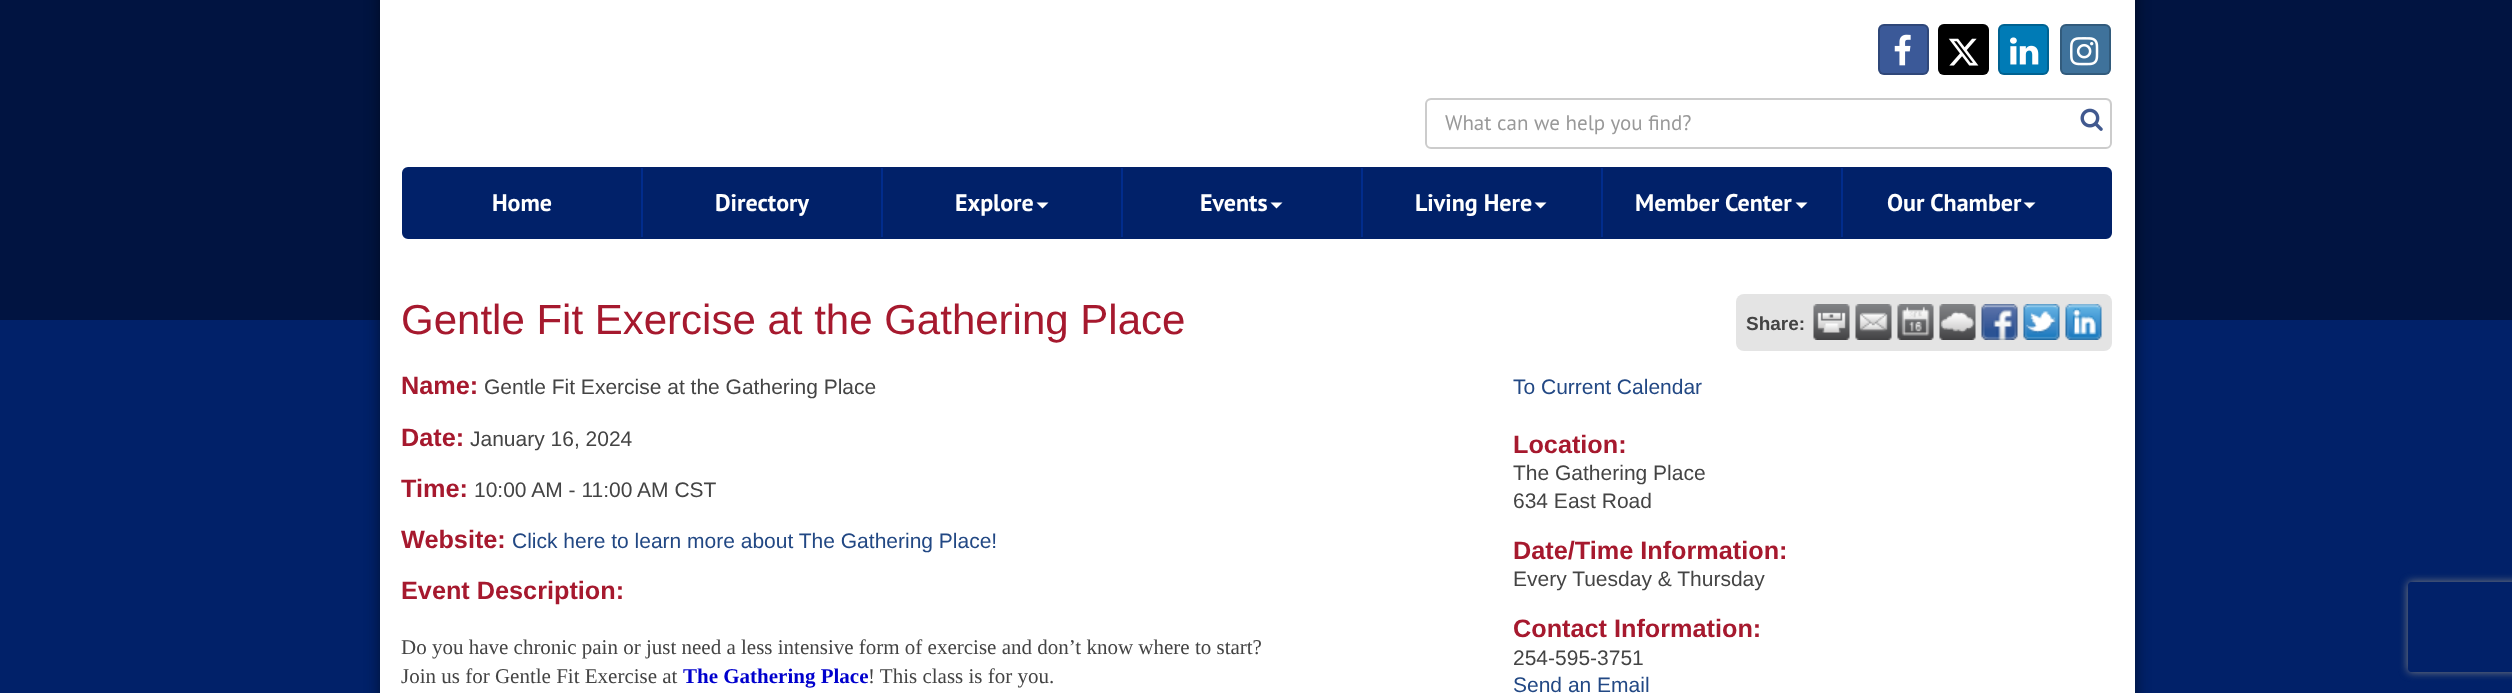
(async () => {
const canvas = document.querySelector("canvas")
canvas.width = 2512
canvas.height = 693
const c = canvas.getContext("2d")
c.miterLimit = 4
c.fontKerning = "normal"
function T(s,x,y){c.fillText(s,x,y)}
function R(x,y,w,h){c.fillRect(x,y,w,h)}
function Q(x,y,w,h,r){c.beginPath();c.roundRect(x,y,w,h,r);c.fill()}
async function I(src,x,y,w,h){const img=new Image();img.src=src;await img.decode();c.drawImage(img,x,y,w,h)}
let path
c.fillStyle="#012169"
R(0,0,2512,693)
c.fillStyle="#011441"
R(0,0,2512,320)
c.fillStyle="#00000080"
c.filter="blur(7.5px)"
c.beginPath()
c.rect(380,-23,1755,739)
c.fill()
c.filter="none"
c.fillStyle="#fff"
R(380,0,1755,693)
c.fillStyle="#3b5998"
Q(1878,24,51,51,6)
c.beginPath()
c.roundRect(1879,25,49,49,5)
c.strokeStyle="#00000033"
c.lineWidth=2
c.stroke()
await I("1.png",1894,34,17,32)
c.fillStyle="#000"
Q(1938,24,51,51,6)
c.beginPath()
c.roundRect(1939,25,49,49,5)
c.stroke()
await I("2.png",1948,38,31,28)
c.fillStyle="#007bb6"
Q(1998,24,51,51,6)
c.beginPath()
c.roundRect(1999,25,49,49,5)
c.stroke()
await I("3.png",2010,37,29,28)
c.fillStyle="#3f729b"
Q(2060,24,51,51,6)
c.beginPath()
c.roundRect(2061,25,49,49,5)
c.stroke()
await I("4.png",2070,37,29,29)
c.fillStyle="#ececec"
path = new Path2D("M1431 100h675c2 0 4 3 4 5v40c1-1 1-2 1-3v-38c0-3-2-5-5-5h-674c-2 0-4 1-5 3c1-1 3-2 4-2z")
c.fill(path)
c.beginPath()
c.roundRect(1426,99,685,49,5)
c.strokeStyle="#ccc"
c.stroke()
c.font="21px PT Sans"
c.fillStyle="#999"
T("What can we help you find?",1445,130)
await I("5.png",2080,108,23,23)
c.fillStyle="#012169"
c.beginPath()
c.roundRect(403,168,1708,70,5)
c.fill()
c.strokeStyle="#012169"
c.stroke()
c.fillStyle="#012c8c"
R(641,168,2,69)
c.font="bold 24px PT Sans"
c.fillStyle="#fff"
T("Home",492,211)
c.fillStyle="#012c8c"
R(881,168,2,69)
c.fillStyle="#fff"
T("Directory",715,211)
c.fillStyle="#012c8c"
R(1121,168,2,69)
c.fillStyle="#fff"
T("Explore",955,211)
path = new Path2D("M1036.5 202.5h12l-6 6z")
c.fill(path)
c.fillStyle="#012c8c"
R(1361,168,2,69)
c.fillStyle="#fff"
T("Events",1200,211)
path = new Path2D("M1270.5 202.5h12l-6 6z")
c.fill(path)
c.fillStyle="#012c8c"
R(1601,168,2,69)
c.fillStyle="#fff"
T("Living Here",1415,211)
path = new Path2D("M1534.5 202.5h12l-6 6z")
c.fill(path)
c.fillStyle="#012c8c"
R(1841,168,2,69)
c.fillStyle="#fff"
T("Member Center",1635,211)
path = new Path2D("M1795.5 202.5h12l-6 6z")
c.fill(path)
T("Our Chamber",1887,211)
path = new Path2D("M2023.5 202.5h12l-6 6z")
c.fill(path)
c.font="42px Liberation Sans"
c.fillStyle="#a6192e"
T("Gentle Fit Exercise at the Gathering Place",401,334)
c.fillStyle="#e4e4e4"
Q(1736,294,376,57,8)
c.font="bold 19px Liberation Sans"
c.fillStyle="#444"
T("Share:",1746,330)
await I("6.png",1813,304,37,36)
await I("7.png",1855,304,37,36)
await I("8.png",1897,304,37,36)
await I("9.png",1939,304,37,36)
await I("10.png",1981,304,37,36)
await I("11.png",2023,304,37,36)
await I("12.png",2065,304,37,36)
c.font="bold 25.25px Liberation Sans"
c.fillStyle="#a6192e"
T("Name:",401,394)
c.font="21px Liberation Sans"
c.fillStyle="#444"
T("Gentle Fit Exercise at the Gathering Place",484,394)
c.font="bold 25.25px Liberation Sans"
c.fillStyle="#a6192e"
T("Date:",401,446)
c.font="21px Liberation Sans"
c.fillStyle="#444"
T("January 16, 2024",470,446)
c.font="bold 25.25px Liberation Sans"
c.fillStyle="#a6192e"
T("Time:",401,497)
c.font="21px Liberation Sans"
c.fillStyle="#444"
T("10:00 AM - 11:00 AM CST",474,497)
c.font="bold 25.25px Liberation Sans"
c.fillStyle="#a6192e"
T("Website:",401,548)
c.font="21px Liberation Sans"
c.fillStyle="#224884"
T("Click here to learn more about The Gathering Place!",512,548)
c.font="bold 25.25px Liberation Sans"
c.fillStyle="#a6192e"
T("Event Description:",401,599)
c.font="21px Liberation Serif"
c.fillStyle="#444"
T("Do you have chronic pain or just need a less intensive form of exercise and don’t know where to start?",401,654)
T("Join us for Gentle Fit Exercise at",401,683)
c.font="bold 21px Liberation Serif"
c.fillStyle="#0000cd"
T("The Gathering Place",683,683)
c.font="21px Liberation Serif"
c.fillStyle="#444"
T("! This class is for you.",868,683)
c.font="21px Liberation Sans"
c.fillStyle="#224884"
T("To Current Calendar",1513,394)
c.font="bold 25.25px Liberation Sans"
c.fillStyle="#a6192e"
T("Location:",1513,453)
c.font="21px Liberation Sans"
c.fillStyle="#444"
T("The Gathering Place",1513,480)
T("634 East Road",1513,508)
c.font="bold 25.25px Liberation Sans"
c.fillStyle="#a6192e"
T("Date/Time Information:",1513,559)
c.font="21px Liberation Sans"
c.fillStyle="#444"
T("Every Tuesday & Thursday",1513,586)
c.font="bold 25.25px Liberation Sans"
c.fillStyle="#a6192e"
T("Contact Information:",1513,637)
c.font="21px Liberation Sans"
c.fillStyle="#444"
T("254-595-3751",1513,665)
c.fillStyle="#224884"
T("Send an Email",1513,692)
c.save()
path = new Path2D("M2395 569h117v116h-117zm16 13h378c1.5 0 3 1.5 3 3v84c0 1.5-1.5 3-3 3h-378c-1.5 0-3-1.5-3-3v-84c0-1.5 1.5-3 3-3z")
c.clip(path,"evenodd")
c.fillStyle="#808080"
c.filter="blur(4px)"
c.beginPath()
c.roundRect(2408,582,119,90,3)
c.fill()
c.filter="none"
c.restore()
})()
